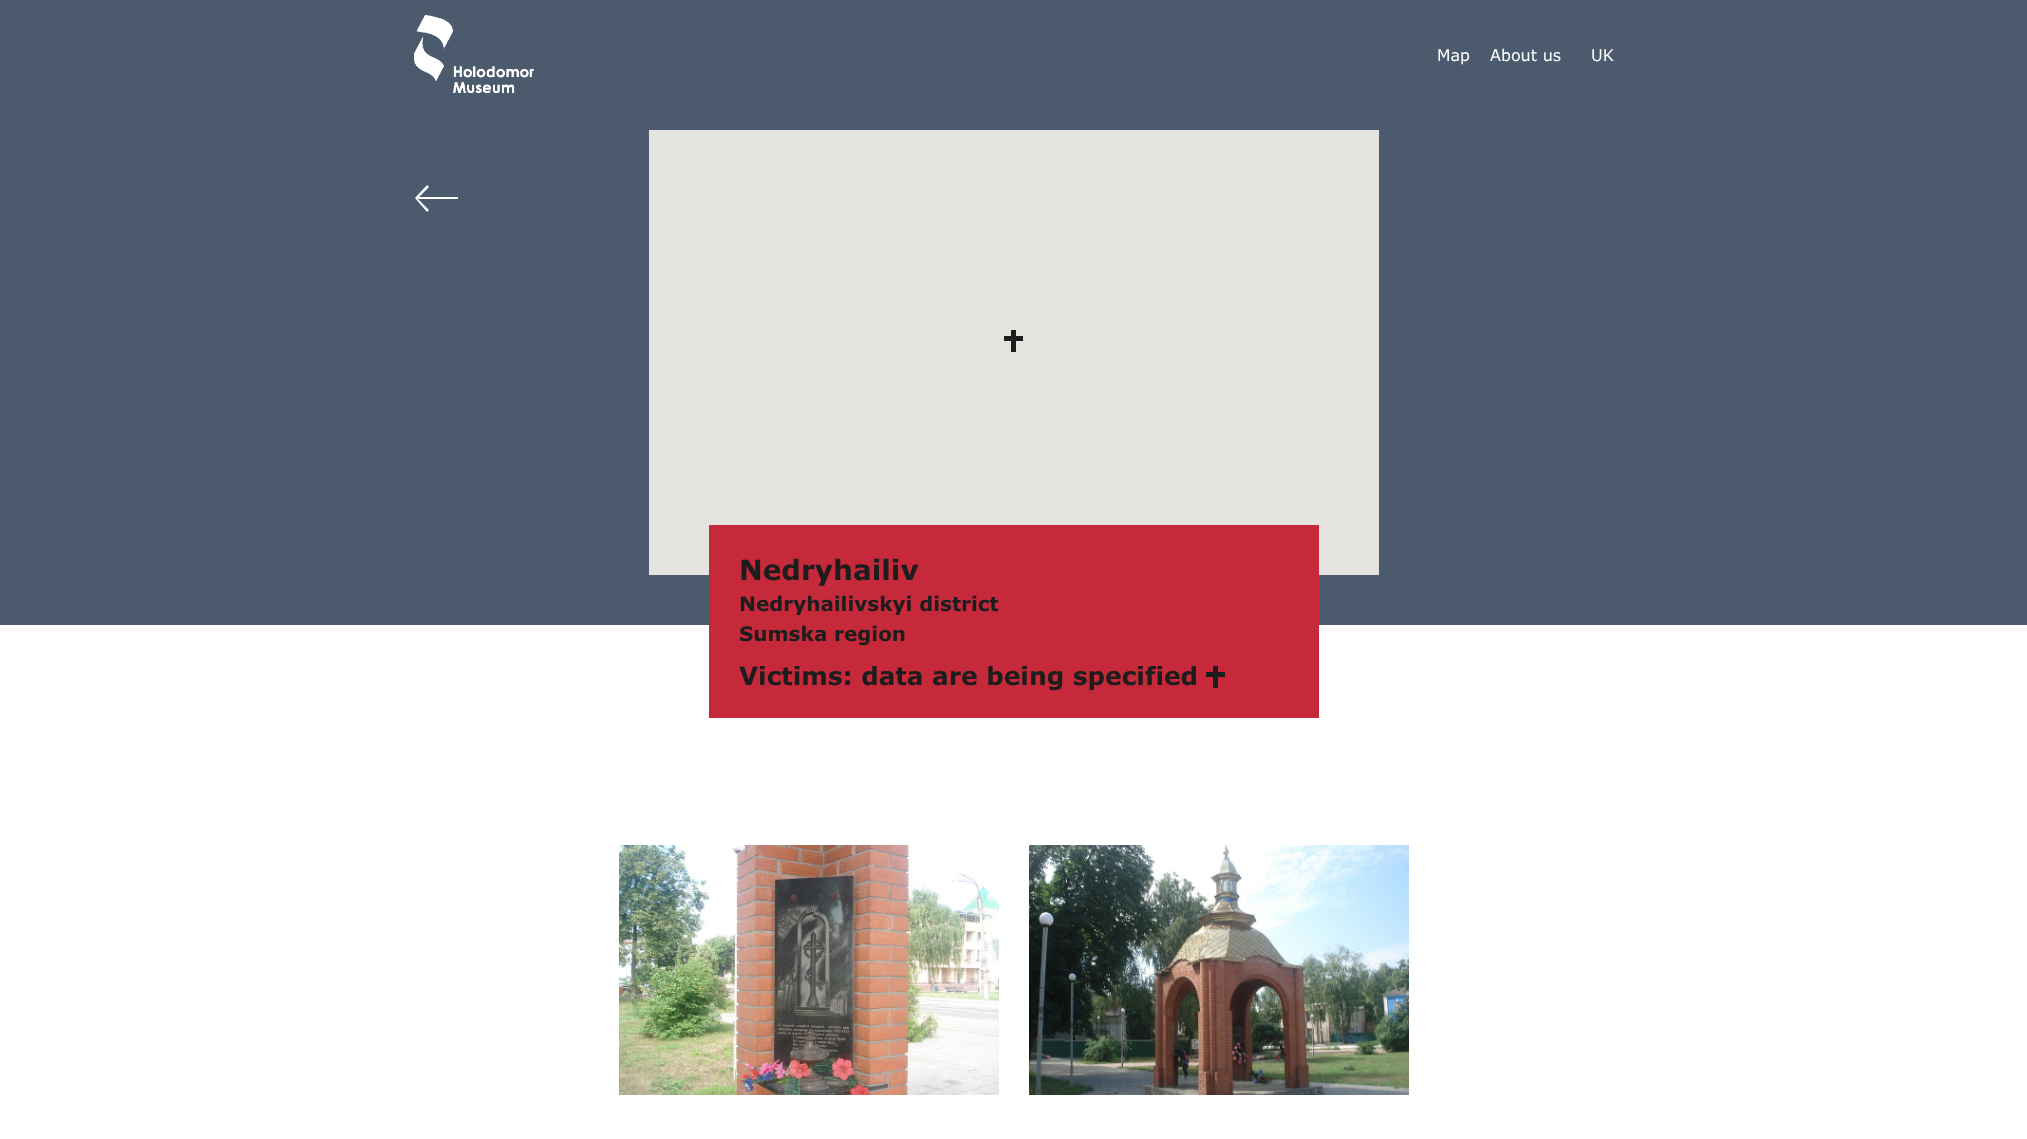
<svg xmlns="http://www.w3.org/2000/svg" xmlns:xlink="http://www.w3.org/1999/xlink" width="2027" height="1139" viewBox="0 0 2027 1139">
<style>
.cls-1{font:16px Verdana;fill:#ffffff}
.cls-2{font:bold 28px Verdana;fill:#1d1d1d}
.cls-3{font:bold 20px Verdana;fill:#1d1d1d}
.cls-4{font:bold 25px Verdana;fill:#1d1d1d}
</style>
<rect width="100%" height="100%" fill="#ffffff"/>
<rect fill="#4c5a6e" x="0" y="0" width="2027" height="625"/>
<image xlink:href="image0.png" x="414" y="15" width="120" height="78"/>
<path fill="#ffffff" d="M418 199V198H417ZM419 197H458V199H418L429 210L427 212L415 198L427 185L429 187Z"/>
<rect fill="#e5e3df" x="649" y="130" width="730" height="445"/>
<image xlink:href="image1.png" x="1004" y="330" width="19" height="22"/>
<rect fill="#c5293a" x="709" y="525" width="610" height="193"/>
<image xlink:href="image2.png" x="1206" y="666" width="19" height="22"/>
<image xlink:href="image3.png" x="619" y="845" width="380" height="250"/>
<image xlink:href="image4.png" x="1029" y="845" width="380" height="250"/>
<text class="cls-1" x="1437" y="61">Map</text>
<text class="cls-1" x="1490" y="61">About us</text>
<text class="cls-1" x="1591" y="61">UK</text>
<text class="cls-2" x="739" y="580">Nedryhаiliv</text>
<text class="cls-3"><tspan x="739" y="611">Nedryhаilivskyi district</tspan><tspan x="739" y="641">Sumskа region</tspan></text>
<text class="cls-4" x="739" y="685">Victims: data are being specified</text>
</svg>
